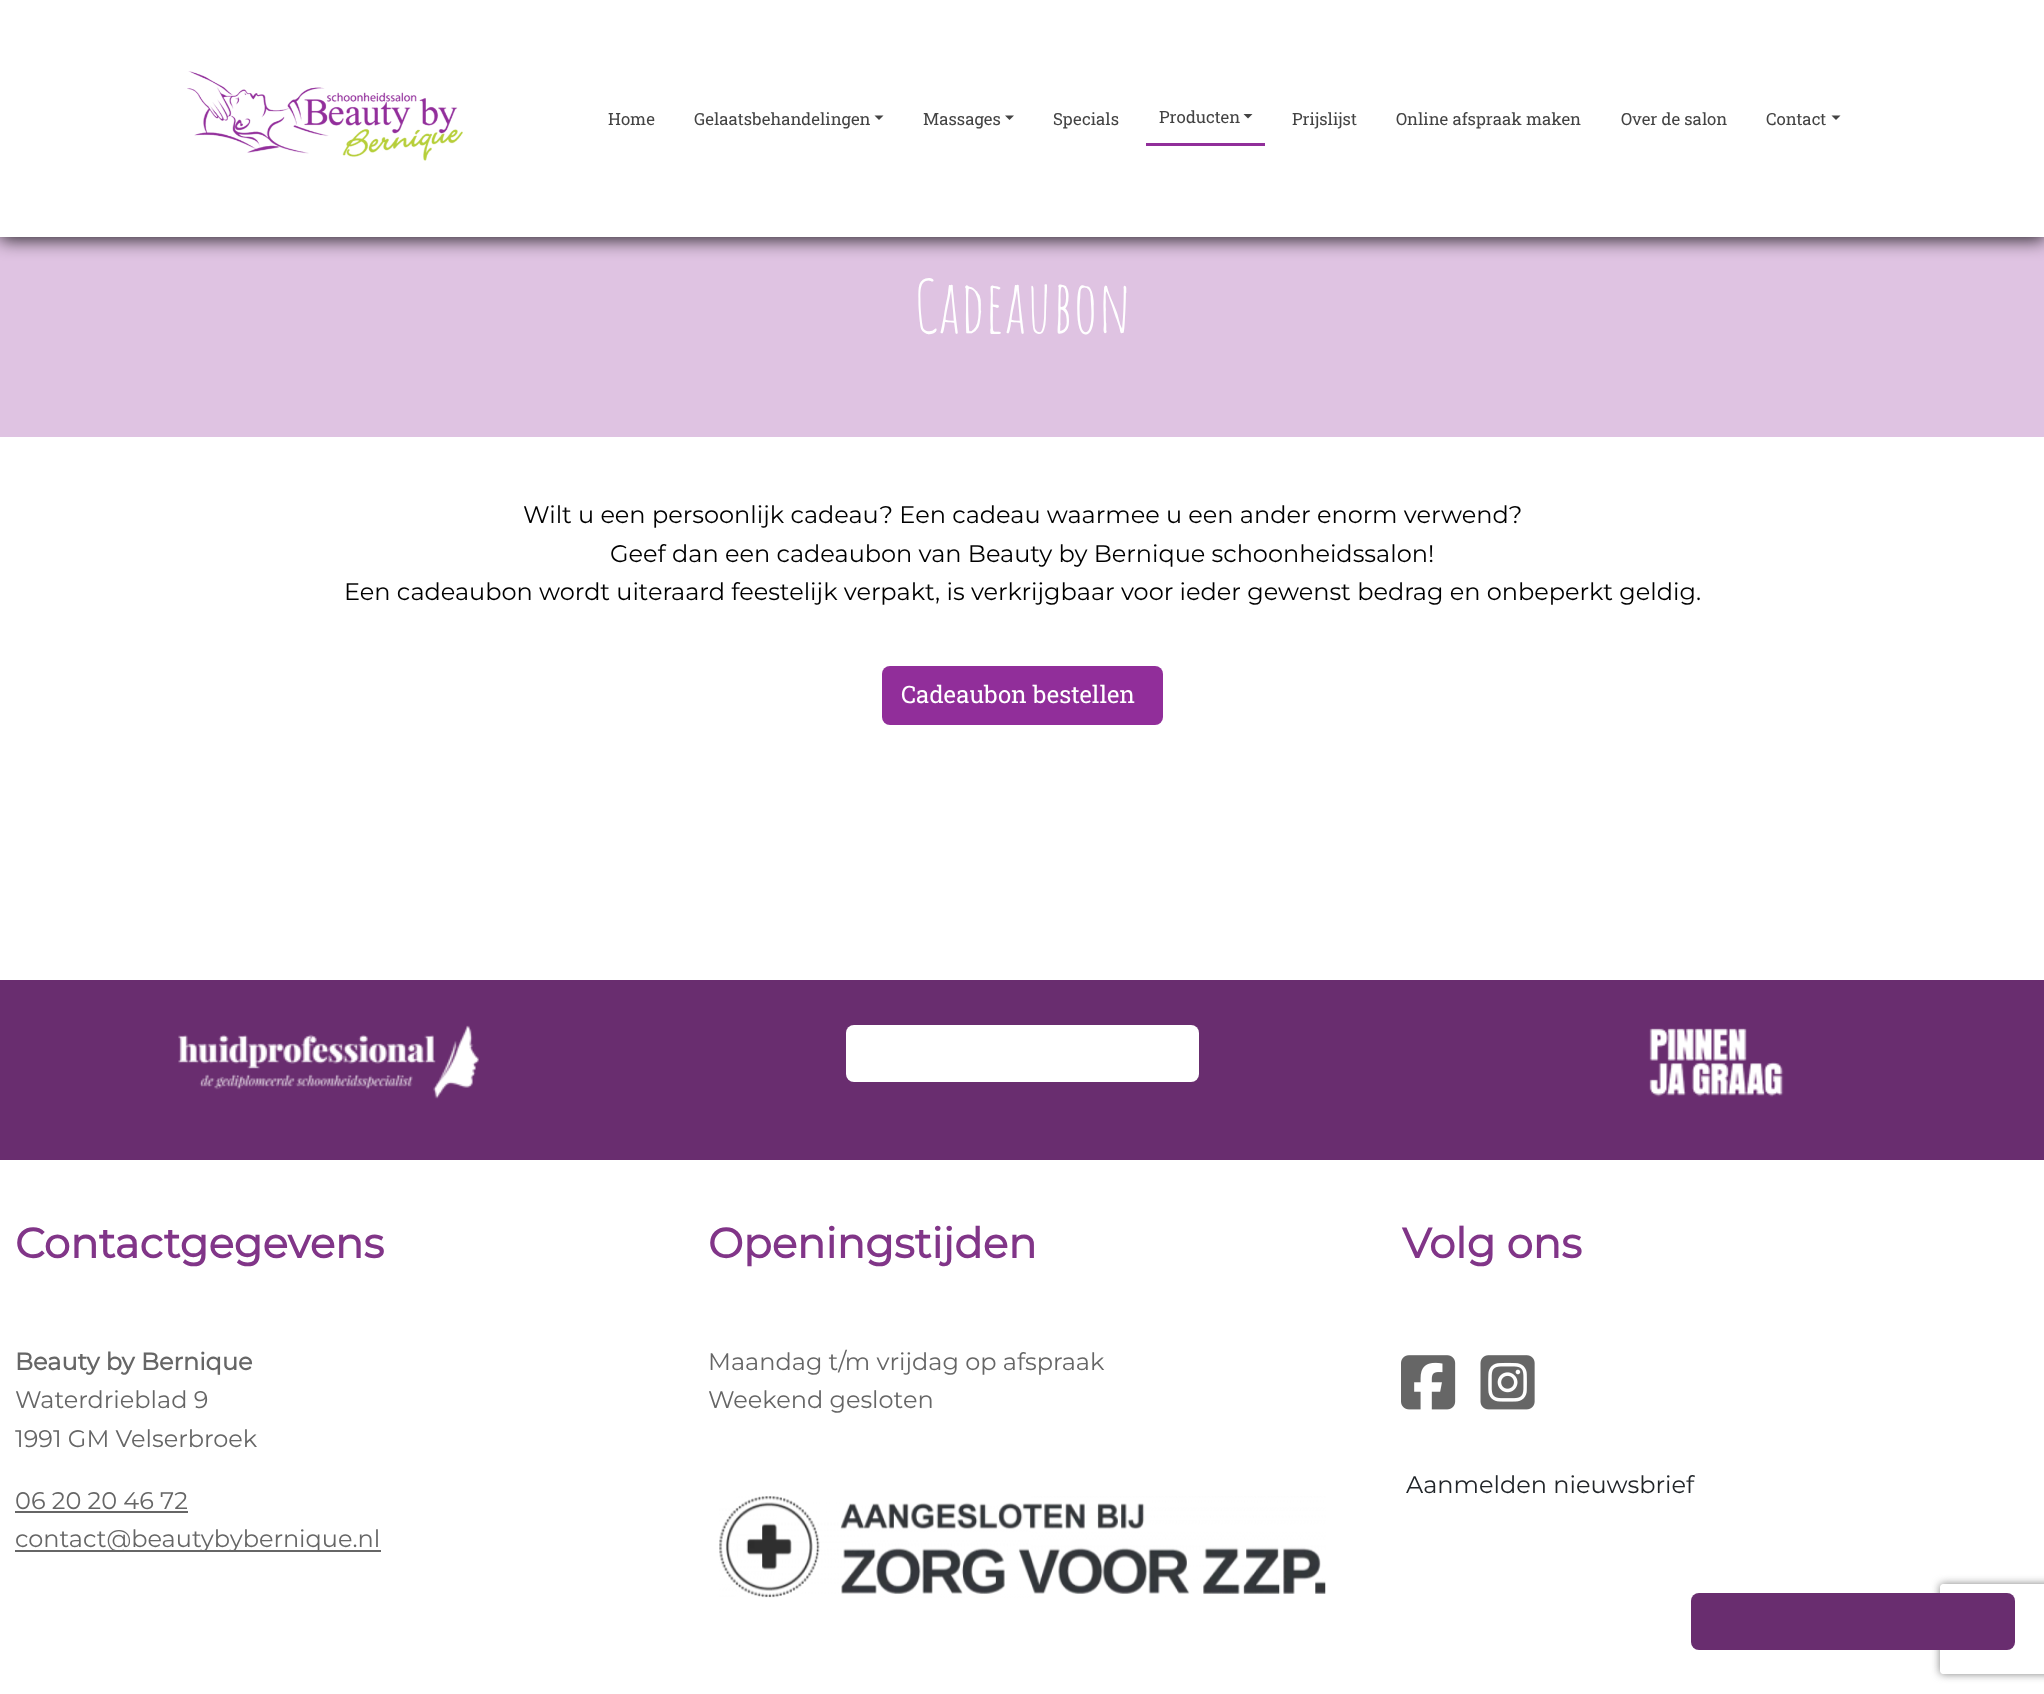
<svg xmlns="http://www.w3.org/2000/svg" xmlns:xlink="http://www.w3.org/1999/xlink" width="2044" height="1694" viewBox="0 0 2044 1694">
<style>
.cls-1{font:16.75px Roboto Slab;fill:#434343}
.cls-2{font:72px Amatic SC;fill:#ffffff}
.cls-3{font:100 24px Montserrat;fill:#000000}
.cls-4{font:24px Roboto Slab;fill:#ffffff}
.cls-5{font:bold 42px Montserrat;fill:#813588}
.cls-6{font:bold 24px Montserrat;fill:#666666}
.cls-7{font:100 24px Montserrat;fill:#666666}
.cls-8{font:100 24px Montserrat;fill:#212529}
</style>
<defs>
<clipPath id="clip1"><path d="M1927 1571H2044V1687H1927ZM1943 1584H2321C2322.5 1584 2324 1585.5 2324 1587V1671C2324 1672.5 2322.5 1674 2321 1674H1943C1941.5 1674 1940 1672.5 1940 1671V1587C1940 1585.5 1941.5 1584 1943 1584Z" clip-rule="evenodd"/></clipPath>
</defs>
<rect width="100%" height="100%" fill="#ffffff"/>
<rect fill="#dfc3e2" x="0" y="237" width="2044" height="200"/>
<rect fill="#000000" fill-opacity="0.8" filter="blur(9px)" x="0" y="3" width="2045" height="237"/>
<rect fill="#ffffff" x="0" y="0" width="2044" height="237"/>
<image xlink:href="image0.png" x="187" y="71" width="276" height="90"/>
<path fill="#434343" d="M874.5 115.5H883.5L879 120Z"/>
<path fill="#434343" d="M1005 115.5H1014L1009.5 120Z"/>
<rect fill="#912e9a" x="1146" y="143" width="119" height="3"/>
<path fill="#434343" d="M1243.5 114H1252.5L1248 118.5Z"/>
<path fill="#434343" d="M1831.5 115.5H1840.5L1836 120Z"/>
<rect fill="#912e9a" x="882" y="666" width="281" height="59" rx="8"/>
<rect fill="#692d6f" x="0" y="980" width="2044" height="180"/>
<image xlink:href="image1.png" x="178" y="1025" width="301" height="74"/>
<rect fill="#ffffff" x="846" y="1025" width="353" height="57" rx="8"/>
<image xlink:href="image2.png" x="1649" y="1028" width="135" height="69"/>
<rect fill="#666666" x="15" y="1511" width="173" height="2"/>
<rect fill="#666666" x="15" y="1550" width="366" height="2"/>
<image xlink:href="image3.png" x="719" y="1496" width="607" height="102"/>
<image xlink:href="image4.png" x="1401" y="1355" width="55" height="55"/>
<image xlink:href="image5.png" x="1480" y="1355" width="55" height="55"/>
<g clip-path="url(#clip1)">
<rect fill="#808080" filter="blur(4px)" x="1940" y="1584" width="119" height="90" rx="3"/>
</g>
<rect fill="#692d6f" x="1691" y="1593" width="324" height="57" rx="8"/>
<text class="cls-1" x="608" y="125">Home</text>
<text class="cls-1" x="694" y="125">Gelaatsbehandelingen</text>
<text class="cls-1" x="923" y="125">Massages</text>
<text class="cls-1" x="1053" y="125">Specials</text>
<text class="cls-1" x="1159" y="123">Producten</text>
<text class="cls-1" x="1292" y="125">Prijslijst</text>
<text class="cls-1" x="1396" y="125">Online afspraak maken</text>
<text class="cls-1" x="1621" y="125">Over de salon</text>
<text class="cls-1" x="1766" y="125">Contact</text>
<text class="cls-2" x="914" y="333">Cadeaubon</text>
<text class="cls-3" x="523" y="523">Wilt u een persoonlijk cadeau? Een cadeau waarmee u een ander enorm verwend?</text>
<text class="cls-3" x="610" y="562">Geef dan een cadeaubon van Beauty by Bernique schoonheidssalon!</text>
<text class="cls-3" x="344" y="600">Een cadeaubon wordt uiteraard feestelijk verpakt, is verkrijgbaar voor ieder gewenst bedrag en onbeperkt geldig.</text>
<text class="cls-4" x="901" y="703">Cadeaubon bestellen</text>
<text class="cls-5" x="15" y="1258">Contactgegevens</text>
<text class="cls-6" x="15" y="1370">Beauty by Bernique</text>
<text class="cls-7"><tspan x="15" y="1408">Waterdrieblad 9</tspan><tspan x="15" y="1447">1991 GM Velserbroek</tspan></text>
<text class="cls-7"><tspan x="15" y="1509">06 20 20 46 72</tspan><tspan x="15" y="1547">contact@beautybybernique.nl</tspan></text>
<text class="cls-5" x="708" y="1258">Openingstijden</text>
<text class="cls-7"><tspan x="708" y="1370">Maandag t/m vrijdag op afspraak</tspan><tspan x="708" y="1408">Weekend gesloten</tspan></text>
<text class="cls-5" x="1402" y="1258">Volg ons</text>
<text class="cls-8" x="1406" y="1493">Aanmelden nieuwsbrief</text>
</svg>
